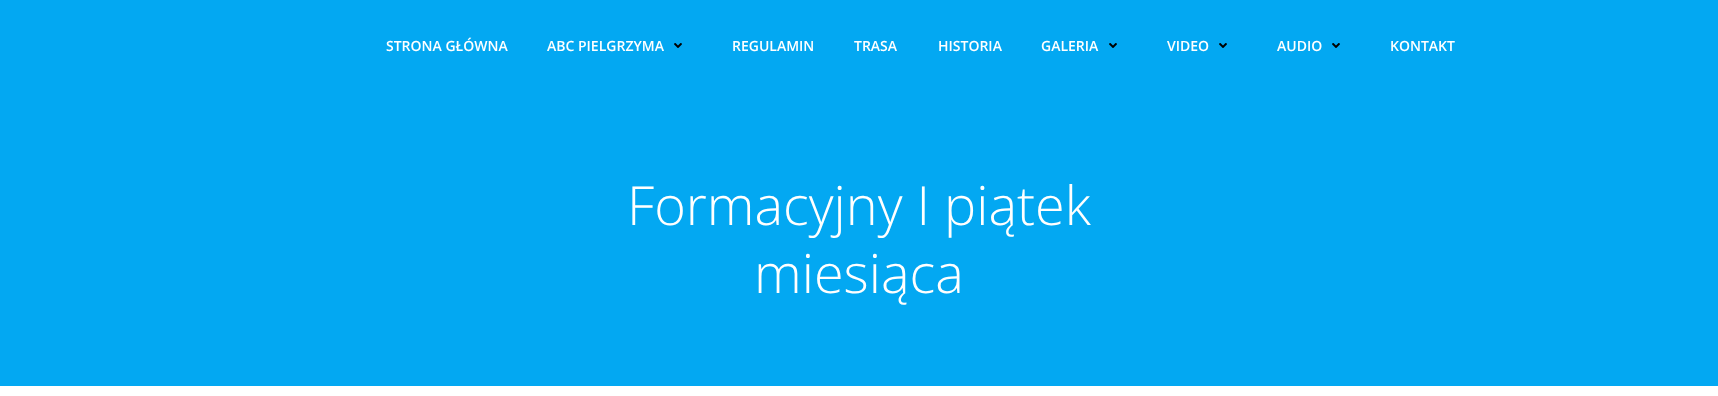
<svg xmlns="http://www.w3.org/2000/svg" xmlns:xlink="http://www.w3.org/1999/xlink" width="1718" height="396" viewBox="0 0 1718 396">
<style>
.cls-1{font:600 14px Open Sans;fill:#ffffff}
.cls-2{font:300 54px Open Sans;fill:#ffffff}
</style>
<rect width="100%" height="100%" fill="#ffffff"/>
<rect fill="#03a8f2" x="0" y="0" width="1718" height="386"/>
<image xlink:href="image0.png" x="674" y="43" width="8" height="5"/>
<image xlink:href="image0.png" x="1109" y="43" width="8" height="5"/>
<image xlink:href="image0.png" x="1219" y="43" width="8" height="5"/>
<image xlink:href="image0.png" x="1332" y="43" width="8" height="5"/>
<text class="cls-1" x="386" y="51">STRONA GŁÓWNA</text>
<text class="cls-1" x="547" y="51">ABC PIELGRZYMA</text>
<text class="cls-1" x="732" y="51">REGULAMIN</text>
<text class="cls-1" x="854" y="51">TRASA</text>
<text class="cls-1" x="938" y="51">HISTORIA</text>
<text class="cls-1" x="1041" y="51">GALERIA</text>
<text class="cls-1" x="1167" y="51">VIDEO</text>
<text class="cls-1" x="1277" y="51">AUDIO</text>
<text class="cls-1" x="1390" y="51">KONTAKT</text>
<text class="cls-2" x="627" y="225">Formacyjny I piątek</text>
<text class="cls-2" x="754" y="293">miesiąca</text>
</svg>
